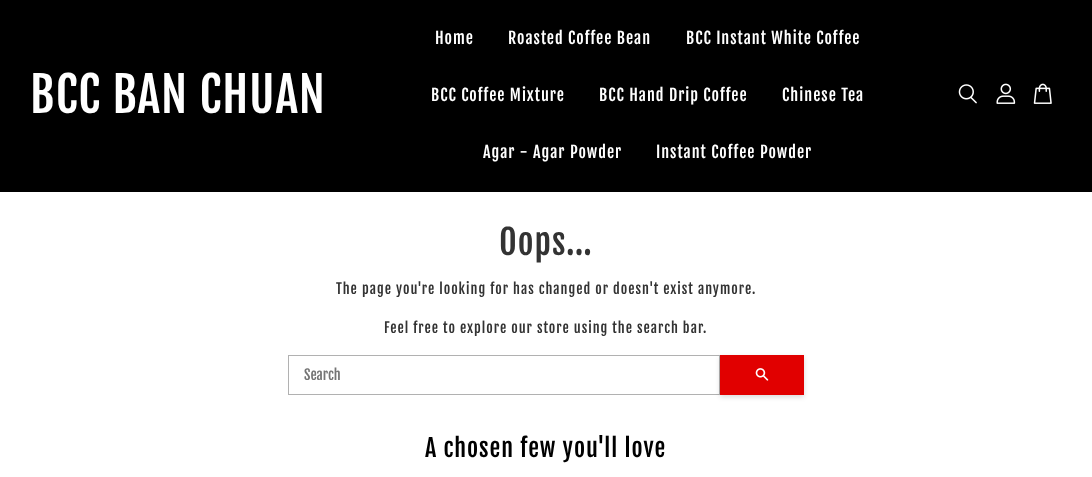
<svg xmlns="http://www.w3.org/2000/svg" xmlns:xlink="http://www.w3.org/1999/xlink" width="1092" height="477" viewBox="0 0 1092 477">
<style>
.cls-1{font:48px Fjalla One;letter-spacing:1px;fill:#ffffff}
.cls-2{font:16px Fjalla One;letter-spacing:1px;fill:#ffffff}
.cls-3{font:34px Fjalla One;letter-spacing:1px;fill:#333333}
.cls-4{font:14px Fjalla One;letter-spacing:1px;fill:#333333}
.cls-5{font:14px Fjalla One;fill:#757575}
.cls-6{font:24px Fjalla One;letter-spacing:1px;fill:#000000}
</style>
<rect width="100%" height="100%" fill="#ffffff"/>
<rect fill="#000000" x="0" y="0" width="1092" height="192"/>
<image xlink:href="image0.png" x="958" y="84" width="19" height="20"/>
<image xlink:href="image1.png" x="996" y="83" width="20" height="21"/>
<image xlink:href="image2.png" x="1033" y="83" width="19" height="21"/>
<rect fill="none" stroke="#b1b1b1" x="288.5" y="355.5" width="431" height="39"/>
<rect fill="#000000" fill-opacity="0.15" filter="blur(2.5px)" x="720" y="357" width="84" height="40"/>
<rect fill="#e10000" x="720" y="355" width="84" height="40"/>
<image xlink:href="image3.png" x="755" y="368" width="14" height="13"/>
<text class="cls-1" x="30" y="113">BCC BAN CHUAN</text>
<text class="cls-2" x="435" y="44">Home</text>
<text class="cls-2" x="508" y="44">Roasted Coffee Bean</text>
<text class="cls-2" x="686" y="44">BCC Instant White Coffee</text>
<text class="cls-2" x="431" y="101">BCC Coffee Mixture</text>
<text class="cls-2" x="599" y="101">BCC Hand Drip Coffee</text>
<text class="cls-2" x="782" y="101">Chinese Tea</text>
<text class="cls-2" x="483" y="158">Agar - Agar Powder</text>
<text class="cls-2" x="656" y="158">Instant Coffee Powder</text>
<text class="cls-3" x="499" y="255">Oops...</text>
<text class="cls-4" x="336" y="294">The page you're looking for has changed or doesn't exist anymore.</text>
<text class="cls-4" x="384" y="333">Feel free to explore our store using the search bar.</text>
<text class="cls-5" x="304" y="380">Search</text>
<text class="cls-6" x="425" y="457">A chosen few you'll love</text>
</svg>
